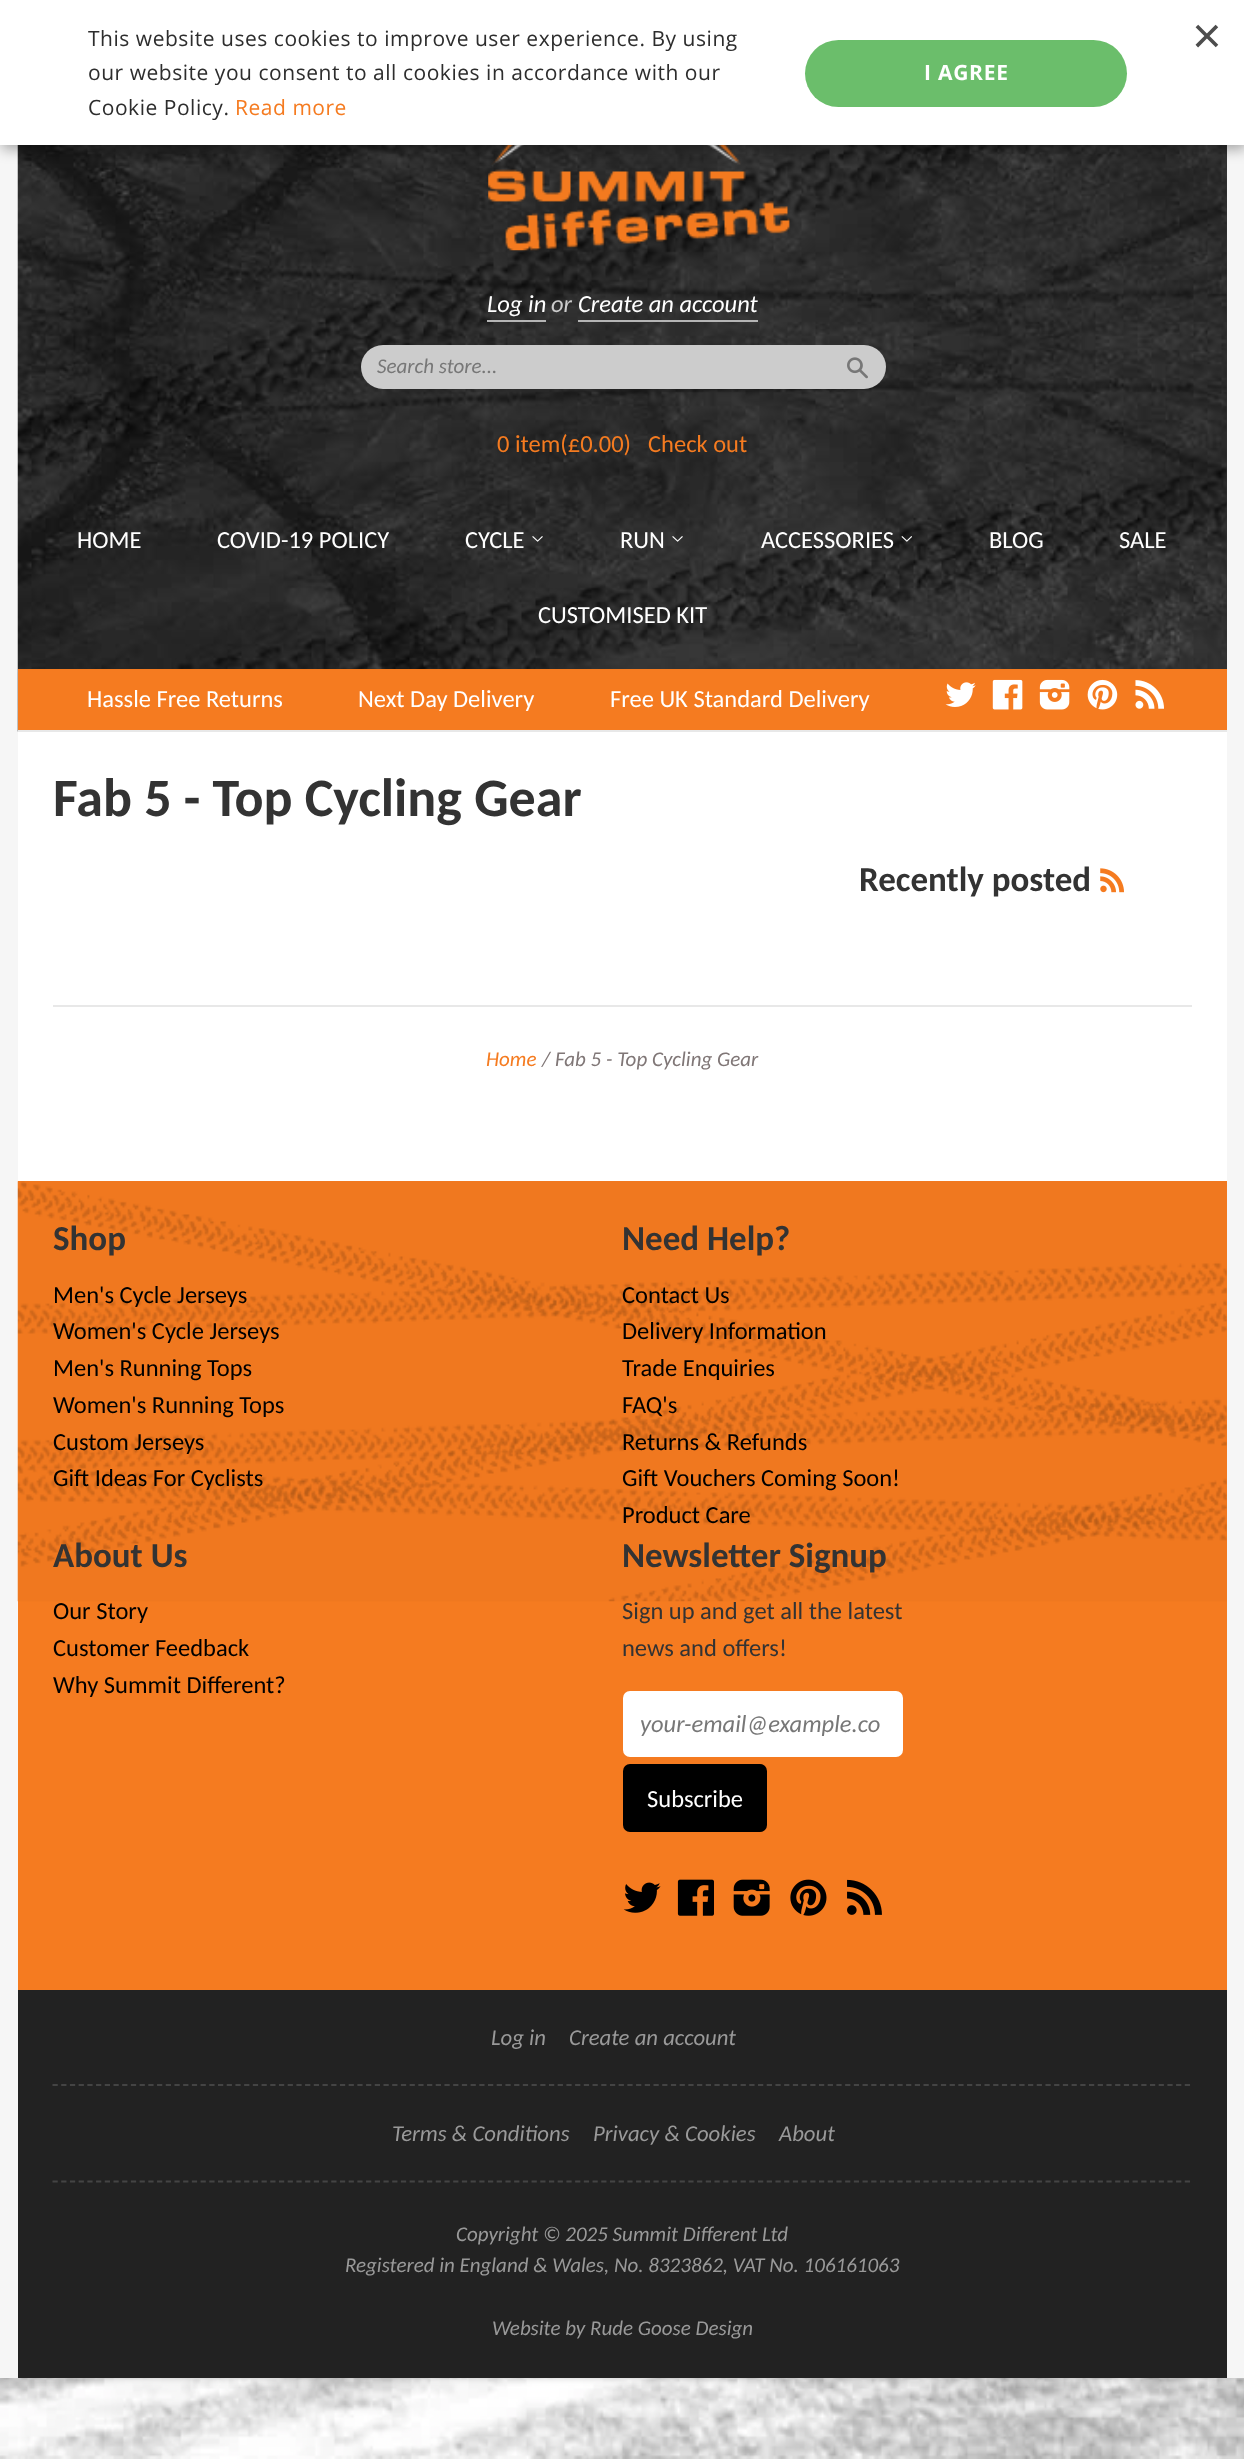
<svg xmlns="http://www.w3.org/2000/svg" xmlns:xlink="http://www.w3.org/1999/xlink" width="1244" height="2459" viewBox="0 0 1244 2459">
<style>
.cls-1{font:21px Open Sans;letter-spacing:0.53px;fill:#2d2d2d}
.cls-2{font:21px Open Sans;letter-spacing:0.53px;fill:#f57b20}
.cls-3{font:bold 21px Open Sans;letter-spacing:0.75px;fill:#ffffff}
.cls-4{font:51px Liberation Sans;fill:#4d4d4d}
.cls-5{font:italic 24.5px Carlito;fill:#ffffff}
.cls-6{font:italic 24.5px Carlito;fill:#cccccc}
.cls-7{font:italic 21px Carlito;fill:#777777}
.cls-8{font:24.5px Carlito;fill:#f57b20}
.cls-9{font:24.5px Carlito;fill:#ffffff}
.cls-10{font:bold 54px Carlito;fill:#333333}
.cls-11{font:bold 35px Carlito;fill:#333333}
.cls-12{font:italic 21px Carlito;fill:#f57b20}
.cls-13{font:italic 21px Carlito;fill:#807777}
.cls-14{font:24.5px Carlito;fill:#000000}
.cls-15{font:24.5px Carlito;fill:#333333}
.cls-16{font:italic 24.5px Carlito;fill:#777777}
.cls-17{font:italic 22.75px Carlito;fill:#999999}
.cls-18{font:italic 21px Carlito;fill:#999999}
</style>
<rect width="100%" height="100%" fill="#ffffff"/>
<image xlink:href="image0.png" x="0" y="2378" width="1244" height="81"/>
<rect fill="#000000" fill-opacity="0.2" filter="blur(3.5px)" x="0" y="0" width="1244" height="2378"/>
<rect fill="#f6f6f6" x="1227" y="145" width="17" height="2233"/>
<rect fill="#f6f6f6" x="0" y="145" width="18" height="2233"/>
<rect fill="#333333" x="1226" y="145" width="1" height="524"/>
<image xlink:href="image1.png" x="17" y="145" width="1210" height="587"/>
<image xlink:href="image2.png" x="488" y="145" width="302" height="106"/>
<rect fill="#000000" fill-opacity="0.35" filter="blur(7px)" x="2" y="4" width="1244" height="145"/>
<rect fill="#ffffff" x="0" y="0" width="1244" height="145"/>
<rect fill="#6bbe6b" x="805" y="40" width="322" height="67" rx="33.5"/>
<rect fill="#ffffff" x="18" y="732" width="1209" height="449"/>
<rect fill="#e8e8e8" x="18" y="730" width="1209" height="2"/>
<rect fill="#b5b5b5" x="487" y="320" width="59" height="2"/>
<rect fill="#b5b5b5" x="578" y="320" width="180" height="2"/>
<rect fill="#cccccc" x="361" y="345" width="525" height="44" rx="22"/>
<image xlink:href="image3.png" x="847" y="357" width="21" height="22"/>
<image xlink:href="image4.png" x="532" y="536" width="11" height="6"/>
<image xlink:href="image5.png" x="672" y="536" width="11" height="6"/>
<image xlink:href="image6.png" x="901" y="536" width="11" height="6"/>
<rect fill="#f57b20" x="18" y="669" width="1209" height="61"/>
<image xlink:href="image7.png" x="945" y="682" width="31" height="25"/>
<image xlink:href="image8.png" x="992" y="679" width="31" height="31"/>
<image xlink:href="image9.png" x="1039" y="679" width="31" height="31"/>
<image xlink:href="image10.png" x="1087" y="679" width="31" height="31"/>
<image xlink:href="image11.png" x="1135" y="680" width="29" height="29"/>
<image xlink:href="image12.png" x="1100" y="868" width="24" height="25"/>
<rect fill="#e8e8e8" x="53" y="1005" width="1139" height="2"/>
<rect fill="#f57b20" x="18" y="1181" width="1209" height="809"/>
<image xlink:href="image13.png" x="17" y="1181" width="1210" height="421"/>
<rect fill="#ffffff" x="623" y="1691" width="280" height="66" rx="7"/>
<rect fill="#000000" x="623" y="1764" width="144" height="68" rx="7"/>
<image xlink:href="image14.png" x="623" y="1882" width="38" height="31"/>
<image xlink:href="image15.png" x="677" y="1879" width="37" height="37"/>
<image xlink:href="image16.png" x="733" y="1879" width="37" height="37"/>
<image xlink:href="image17.png" x="790" y="1879" width="37" height="37"/>
<image xlink:href="image18.png" x="847" y="1879" width="35" height="36"/>
<rect fill="#222222" x="18" y="1990" width="1209" height="388"/>
<path fill="none" stroke="#444444" stroke-width="1.8" stroke-dasharray="5.25 3.46" d="M52.5 2085H1192"/>
<path fill="none" stroke="#444444" stroke-width="1.8" stroke-dasharray="5.25 3.46" d="M52.5 2181.5H1192"/>
<text class="cls-1"><tspan x="88" y="46">This website uses cookies to improve user experience. By using</tspan><tspan x="88" y="80">our website you consent to all cookies in accordance with our</tspan><tspan x="88" y="115">Cookie Policy.</tspan></text>
<text class="cls-2" x="235" y="115">Read more</text>
<text class="cls-3" x="924" y="80">I AGREE</text>
<text class="cls-4" x="1192" y="53">×</text>
<text class="cls-5" x="487" y="312">Log in</text>
<text class="cls-6" x="551" y="312">or</text>
<text class="cls-5" x="578" y="312">Create an account</text>
<text class="cls-7" x="377" y="373">Search store...</text>
<text class="cls-8" x="497" y="452">0 item(£0.00)</text>
<text class="cls-8" x="648" y="452">Check out</text>
<text class="cls-9" x="77" y="548">HOME</text>
<text class="cls-9" x="217" y="548">COVID-19 POLICY</text>
<text class="cls-9" x="465" y="548">CYCLE</text>
<text class="cls-9" x="620" y="548">RUN</text>
<text class="cls-9" x="761" y="548">ACCESSORIES</text>
<text class="cls-9" x="989" y="548">BLOG</text>
<text class="cls-9" x="1119" y="548">SALE</text>
<text class="cls-9" x="538" y="623">CUSTOMISED KIT</text>
<text class="cls-9" x="87" y="707">Hassle Free Returns</text>
<text class="cls-9" x="358" y="707">Next Day Delivery</text>
<text class="cls-9" x="610" y="707">Free UK Standard Delivery</text>
<text class="cls-10" x="53" y="816">Fab 5 - Top Cycling Gear</text>
<text class="cls-11" x="859" y="891">Recently posted</text>
<text class="cls-12" x="486" y="1066">Home</text>
<text class="cls-13" x="542" y="1066">/ Fab 5 - Top Cycling Gear</text>
<text class="cls-11" x="53" y="1250">Shop</text>
<text class="cls-14"><tspan x="53" y="1303">Men's Cycle Jerseys</tspan><tspan x="53" y="1339">Women's Cycle Jerseys</tspan><tspan x="53" y="1376">Men's Running Tops</tspan><tspan x="53" y="1413">Women's Running Tops</tspan><tspan x="53" y="1450">Custom Jerseys</tspan><tspan x="53" y="1486">Gift Ideas For Cyclists</tspan></text>
<text class="cls-11" x="622" y="1250">Need Help?</text>
<text class="cls-14"><tspan x="622" y="1303">Contact Us</tspan><tspan x="622" y="1339">Delivery Information</tspan><tspan x="622" y="1376">Trade Enquiries</tspan><tspan x="622" y="1413">FAQ's</tspan><tspan x="622" y="1450">Returns &amp; Refunds</tspan><tspan x="622" y="1486">Gift Vouchers Coming Soon!</tspan><tspan x="622" y="1523">Product Care</tspan></text>
<text class="cls-11" x="53" y="1567">About Us</text>
<text class="cls-14"><tspan x="53" y="1619">Our Story</tspan><tspan x="53" y="1656">Customer Feedback</tspan><tspan x="53" y="1693">Why Summit Different?</tspan></text>
<text class="cls-11" x="622" y="1567">Newsletter Signup</text>
<text class="cls-15"><tspan x="622" y="1619">Sign up and get all the latest</tspan><tspan x="622" y="1656">news and offers!</tspan></text>
<text class="cls-16" x="640" y="1732">your-email@example.co</text>
<text class="cls-9" x="647" y="1807">Subscribe</text>
<text class="cls-17" x="491" y="2045">Log in</text>
<text class="cls-17" x="569" y="2045">Create an account</text>
<text class="cls-17" x="392" y="2141">Terms &amp; Conditions</text>
<text class="cls-17" x="593" y="2141">Privacy &amp; Cookies</text>
<text class="cls-17" x="779" y="2141">About</text>
<text class="cls-18" x="456" y="2241">Copyright © 2025 Summit Different Ltd</text>
<text class="cls-18" x="345" y="2272">Registered in England &amp; Wales, No. 8323862, VAT No. 106161063</text>
<text class="cls-18" x="492" y="2335">Website by Rude Goose Design</text>
</svg>
